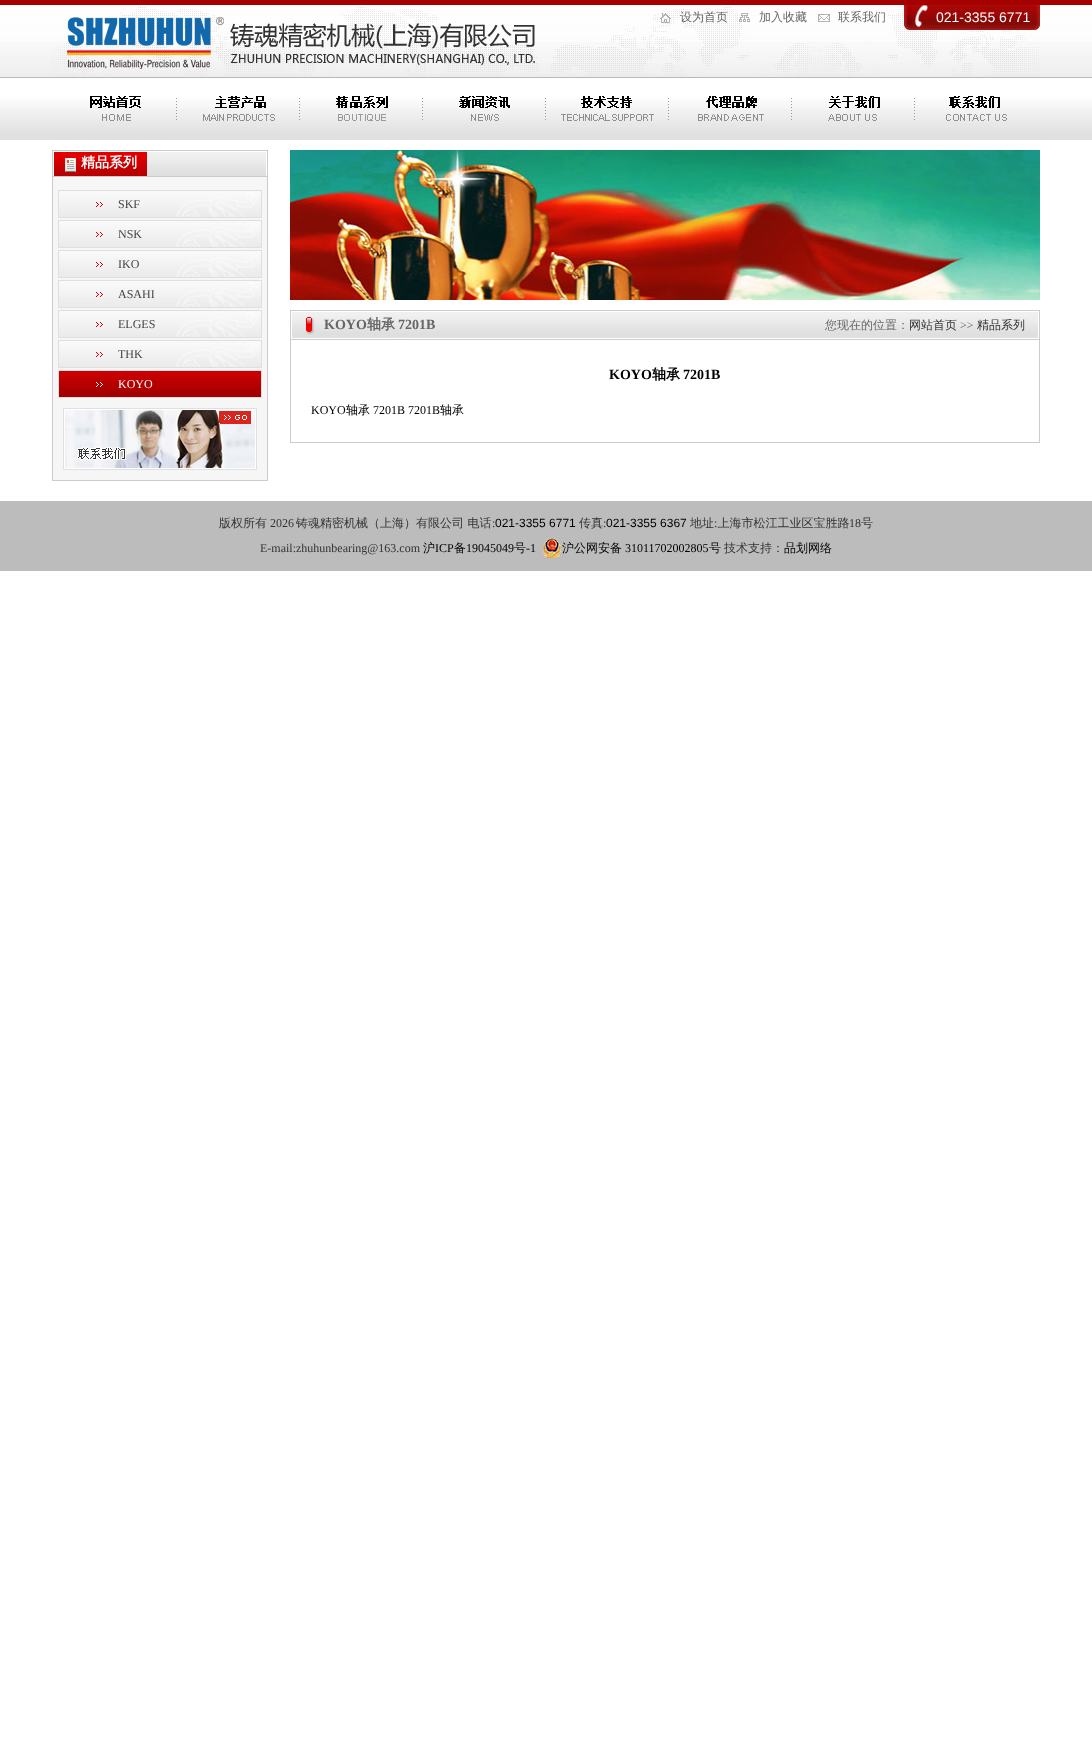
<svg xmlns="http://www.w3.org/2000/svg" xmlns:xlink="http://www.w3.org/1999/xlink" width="1092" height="1743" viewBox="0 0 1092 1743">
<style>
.cls-1{font:500 12px WenQuanYi Zen Hei;fill:#666666}
.cls-2{font:14px Liberation Sans;fill:#ffffff}
.cls-3{font:bold 14px WenQuanYi Zen Hei;fill:#ffffff}
.cls-4{font:12px Liberation Serif;fill:#444444}
.cls-5{font:12px Liberation Serif;fill:#ffffff}
.cls-6{font:bold 14px Liberation Serif;fill:#666666}
.cls-7{font:bold 14px WenQuanYi Zen Hei;fill:#666666}
.cls-8{font:500 12px WenQuanYi Zen Hei;fill:#333333}
.cls-9{font:12px Liberation Serif;fill:#666666}
.cls-10{font:bold 14px Liberation Serif;fill:#000000}
.cls-11{font:bold 14px WenQuanYi Zen Hei;fill:#000000}
.cls-12{font:12px Liberation Serif;fill:#000000}
.cls-13{font:500 12px WenQuanYi Zen Hei;fill:#000000}
.cls-14{font:12px Liberation Serif;fill:#333333}
.cls-15{font:12px Liberation Sans;fill:#000000}
</style>
<rect width="100%" height="100%" fill="#ffffff"/>
<image xlink:href="image0.png" x="0" y="0" width="1092" height="140"/>
<image xlink:href="image1.png" x="52" y="7" width="987" height="69"/>
<image xlink:href="image2.png" x="67" y="17" width="468" height="52"/>
<image xlink:href="image3.png" x="660" y="13" width="11" height="10"/>
<image xlink:href="image4.png" x="739" y="13" width="11" height="9"/>
<image xlink:href="image5.png" x="818" y="14" width="12" height="8"/>
<image xlink:href="image6.png" x="904" y="5" width="136" height="25"/>
<image xlink:href="image7.png" x="176" y="98" width="1" height="22"/>
<image xlink:href="image8.png" x="90" y="96" width="51" height="25"/>
<image xlink:href="image7.png" x="299" y="98" width="1" height="22"/>
<image xlink:href="image9.png" x="203" y="96" width="72" height="25"/>
<image xlink:href="image7.png" x="422" y="98" width="1" height="22"/>
<image xlink:href="image10.png" x="336" y="96" width="52" height="25"/>
<image xlink:href="image7.png" x="545" y="98" width="1" height="22"/>
<image xlink:href="image11.png" x="459" y="96" width="51" height="25"/>
<image xlink:href="image7.png" x="668" y="98" width="1" height="22"/>
<image xlink:href="image12.png" x="561" y="96" width="93" height="25"/>
<image xlink:href="image7.png" x="791" y="98" width="1" height="22"/>
<image xlink:href="image13.png" x="698" y="96" width="66" height="25"/>
<image xlink:href="image7.png" x="914" y="98" width="1" height="22"/>
<image xlink:href="image14.png" x="828" y="96" width="52" height="25"/>
<image xlink:href="image15.png" x="946" y="96" width="61" height="25"/>
<image xlink:href="image16.png" x="52" y="150" width="216" height="26"/>
<rect fill="#f6f6f6" stroke="#cccccc" x="52.5" y="176.5" width="215" height="304"/>
<image xlink:href="image17.png" x="58" y="190" width="204" height="28"/>
<image xlink:href="image17.png" x="58" y="220" width="204" height="28"/>
<image xlink:href="image17.png" x="58" y="250" width="204" height="28"/>
<image xlink:href="image17.png" x="58" y="280" width="204" height="28"/>
<image xlink:href="image17.png" x="58" y="310" width="204" height="28"/>
<image xlink:href="image17.png" x="58" y="340" width="204" height="28"/>
<image xlink:href="image18.png" x="58" y="370" width="204" height="28"/>
<image xlink:href="image19.png" x="63" y="408" width="195" height="62"/>
<image xlink:href="image20.png" x="290" y="150" width="750" height="150"/>
<image xlink:href="image21.png" x="290" y="310" width="750" height="30"/>
<rect fill="#cccccc" x="1039" y="340" width="1" height="103"/>
<rect fill="#cccccc" x="290" y="442" width="750" height="1"/>
<rect fill="#cccccc" x="290" y="340" width="1" height="103"/>
<rect fill="#bcbcbc" x="0" y="501" width="1092" height="70"/>
<image xlink:href="image22.png" x="543" y="538" width="18" height="20"/>
<text class="cls-1" x="680" y="21">设为首页</text>
<text class="cls-1" x="759" y="21">加入收藏</text>
<text class="cls-1" x="838" y="21">联系我们</text>
<text class="cls-2" x="936" y="22">021-3355 6771</text>
<text class="cls-3" x="81" y="167">精品系列</text>
<text class="cls-4" x="118" y="208">SKF</text>
<text class="cls-4" x="118" y="238">NSK</text>
<text class="cls-4" x="118" y="268">IKO</text>
<text class="cls-4" x="118" y="298">ASAHI</text>
<text class="cls-4" x="118" y="328">ELGES</text>
<text class="cls-4" x="118" y="358">THK</text>
<text class="cls-5" x="118" y="388">KOYO</text>
<text class="cls-6" x="324" y="329">KOYO</text>
<text class="cls-7" x="367" y="329">轴承</text>
<text class="cls-6" x="398" y="329">7201B</text>
<text class="cls-1" x="825" y="329">您现在的位置：</text>
<text class="cls-8" x="909" y="329">网站首页</text>
<text class="cls-9" x="960" y="329">&gt;&gt;</text>
<text class="cls-8" x="977" y="329">精品系列</text>
<text class="cls-10" x="609" y="379">KOYO</text>
<text class="cls-11" x="652" y="379">轴承</text>
<text class="cls-10" x="683" y="379">7201B</text>
<text class="cls-12" x="311" y="414">KOYO</text>
<text class="cls-13" x="346" y="414">轴承</text>
<text class="cls-12" x="373" y="414">7201B 7201B</text>
<text class="cls-13" x="440" y="414">轴承</text>
<text class="cls-8" x="219" y="527">版权所有</text>
<text class="cls-14" x="270" y="527">2026</text>
<text class="cls-8" x="296" y="527">铸魂精密机械（上海）有限公司 电话</text>
<text class="cls-14" x="492" y="527">:</text>
<text class="cls-15" x="495" y="527">021-3355 6771</text>
<text class="cls-8" x="579" y="527">传真</text>
<text class="cls-14" x="603" y="527">:</text>
<text class="cls-15" x="606" y="527">021-3355 6367</text>
<text class="cls-8" x="690" y="527">地址 上海市松江工业区宝胜路</text>
<text class="cls-14" x="849" y="527">18</text>
<text class="cls-8" x="861" y="527">号</text>
<text class="cls-14" x="714" y="527">:</text>
<text class="cls-14" x="260" y="552">E-mail:zhuhunbearing@163.com</text>
<text class="cls-13" x="423" y="552">沪</text>
<text class="cls-12" x="435" y="552">ICP</text>
<text class="cls-13" x="454" y="552">备</text>
<text class="cls-12" x="466" y="552">19045049</text>
<text class="cls-13" x="514" y="552">号</text>
<text class="cls-12" x="526" y="552">-1</text>
<text class="cls-13" x="562" y="552">沪公网安备</text>
<text class="cls-12" x="625" y="552">31011702002805</text>
<text class="cls-13" x="709" y="552">号</text>
<text class="cls-8" x="724" y="552">技术支持：</text>
<text class="cls-13" x="784" y="552">品划网络</text>
</svg>
